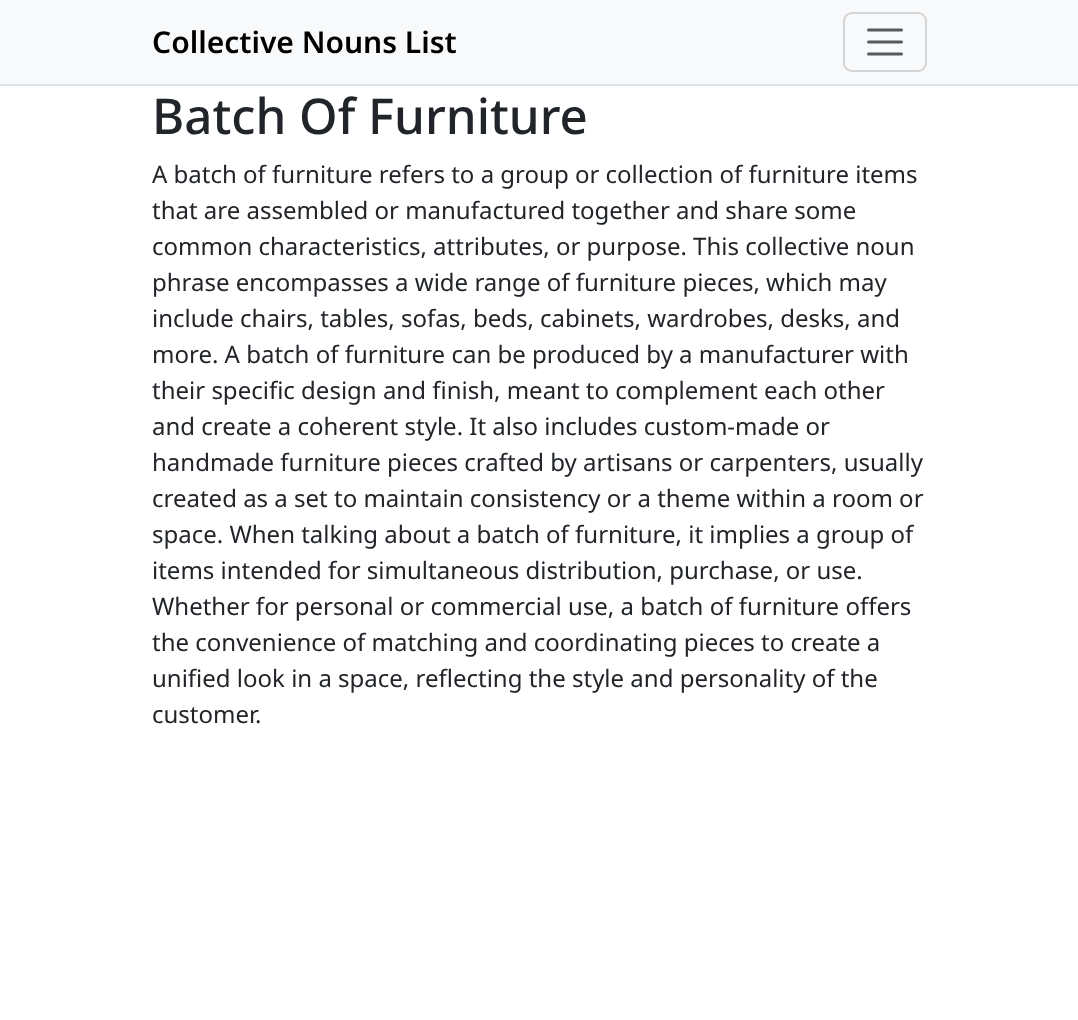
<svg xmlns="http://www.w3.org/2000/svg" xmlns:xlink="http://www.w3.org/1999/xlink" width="1078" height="1020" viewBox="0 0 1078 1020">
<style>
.cls-1{font:600 30px Noto Sans;fill:#000000}
.cls-2{font:500 49.25px Noto Sans;fill:#212529}
.cls-3{font:24px Noto Sans;fill:#212529}
</style>
<rect width="100%" height="100%" fill="#ffffff"/>
<rect fill="#f8f9fa" x="0" y="0" width="1078" height="84"/>
<rect fill="#dee2e6" x="0" y="84" width="1078" height="2"/>
<rect fill="none" stroke="#d3d4d5" stroke-width="2" x="844" y="13" width="82" height="58" rx="8"/>
<path fill="none" stroke="#575a5d" stroke-width="3" stroke-linecap="round" d="M868.5 30H901.5M868.5 42H901.5M868.5 54H901.5"/>
<text class="cls-1" x="152" y="53">Collective Nouns List</text>
<text class="cls-2" x="152" y="134">Batch Of Furniture</text>
<text class="cls-3"><tspan x="152" y="183">A batch of furniture refers to a group or collection of furniture items</tspan><tspan x="152" y="219">that are assembled or manufactured together and share some</tspan><tspan x="152" y="255">common characteristics, attributes, or purpose. This collective noun</tspan><tspan x="152" y="291">phrase encompasses a wide range of furniture pieces, which may</tspan><tspan x="152" y="327">include chairs, tables, sofas, beds, cabinets, wardrobes, desks, and</tspan><tspan x="152" y="363">more. A batch of furniture can be produced by a manufacturer with</tspan><tspan x="152" y="399">their specific design and finish, meant to complement each other</tspan><tspan x="152" y="435">and create a coherent style. It also includes custom-made or</tspan><tspan x="152" y="471">handmade furniture pieces crafted by artisans or carpenters, usually</tspan><tspan x="152" y="507">created as a set to maintain consistency or a theme within a room or</tspan><tspan x="152" y="543">space. When talking about a batch of furniture, it implies a group of</tspan><tspan x="152" y="579">items intended for simultaneous distribution, purchase, or use.</tspan><tspan x="152" y="615">Whether for personal or commercial use, a batch of furniture offers</tspan><tspan x="152" y="651">the convenience of matching and coordinating pieces to create a</tspan><tspan x="152" y="687">unified look in a space, reflecting the style and personality of the</tspan><tspan x="152" y="723">customer.</tspan></text>
</svg>
